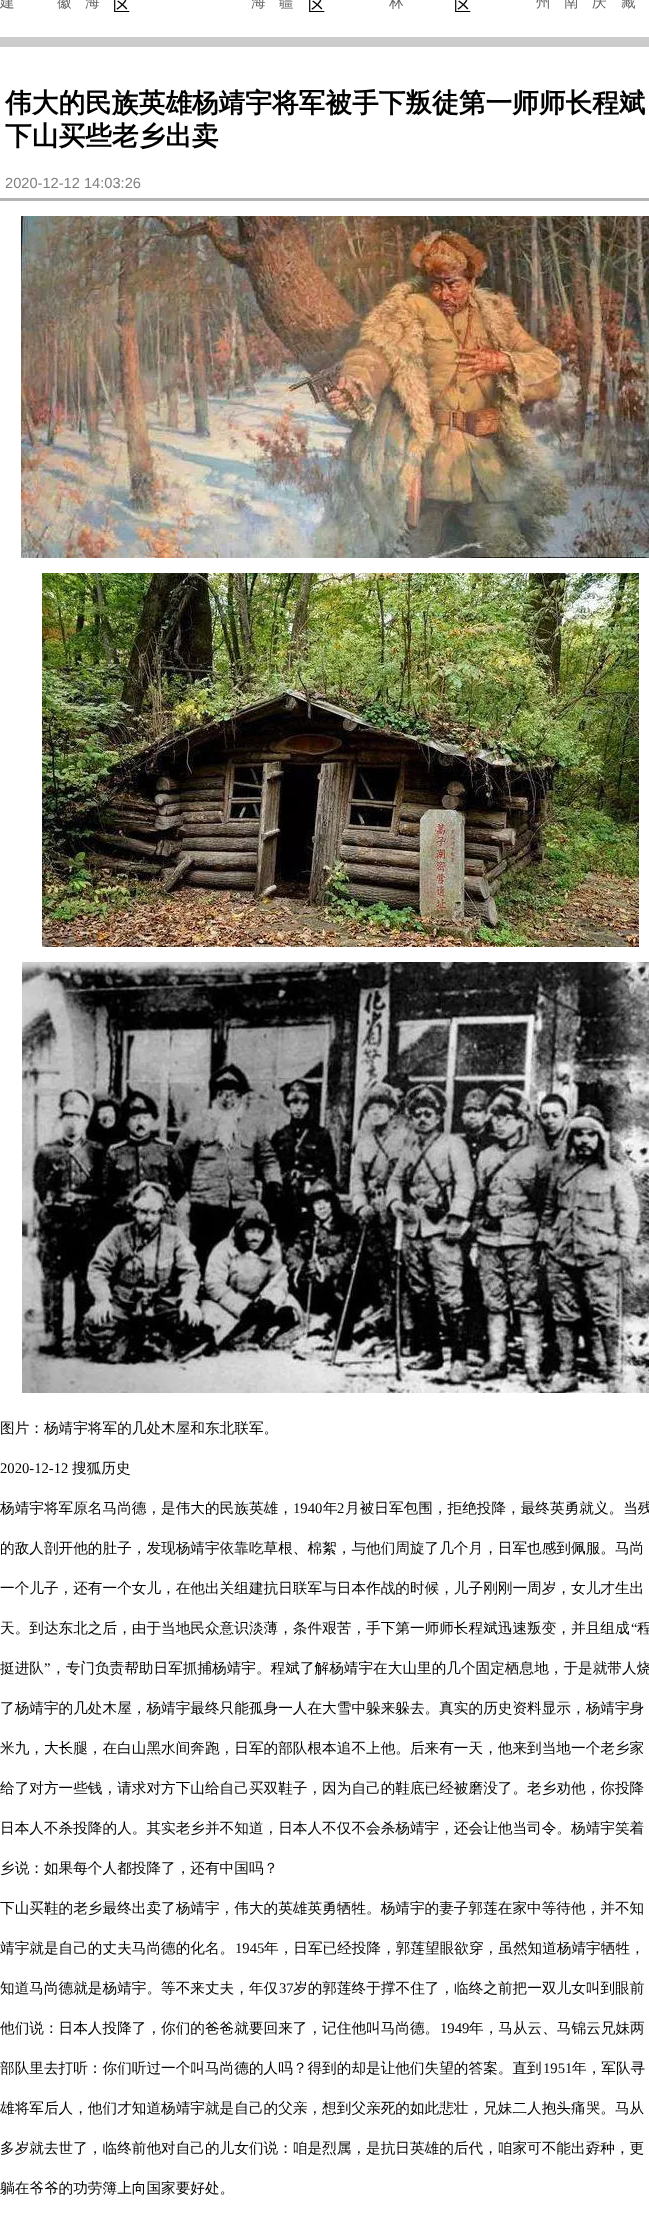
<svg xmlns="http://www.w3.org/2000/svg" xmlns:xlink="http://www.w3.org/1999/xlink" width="649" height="2223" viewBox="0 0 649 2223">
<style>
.cls-1{font:500 14.65px WenQuanYi Zen Hei;fill:#666666}
.cls-2{font:500 17px WenQuanYi Zen Hei;fill:#000000}
.cls-3{font:bold 26.7px WenQuanYi Zen Hei;fill:#000000}
.cls-4{font:14.65px Liberation Sans;fill:#808080}
.cls-5{font:500 14.65px WenQuanYi Zen Hei;fill:#000000}
.cls-6{font:14.65px Liberation Serif;fill:#000000}
</style>
<rect width="100%" height="100%" fill="#ffffff"/>
<rect fill="#cccccc" x="0" y="37" width="649" height="10"/>
<rect fill="#b4b4b4" x="0" y="198" width="649" height="3"/>
<image xlink:href="image0.png" x="21" y="216" width="628" height="342"/>
<image xlink:href="image1.png" x="42" y="573" width="597" height="374"/>
<image xlink:href="image2.png" x="22" y="962" width="627" height="431"/>
<text class="cls-1" x="0" y="7">建</text>
<text class="cls-1" x="57" y="7">徽</text>
<text class="cls-1" x="85" y="7">海</text>
<text class="cls-2" x="113" y="11">区</text>
<text class="cls-1" x="251" y="7">海</text>
<text class="cls-1" x="279" y="7">疆</text>
<text class="cls-2" x="308" y="11">区</text>
<text class="cls-1" x="389" y="7">林</text>
<text class="cls-2" x="454" y="11">区</text>
<text class="cls-1" x="536" y="7">州</text>
<text class="cls-1" x="564" y="7">南</text>
<text class="cls-1" x="592" y="7">庆</text>
<text class="cls-1" x="621" y="7">藏</text>
<text class="cls-3"><tspan x="5" y="112">伟大的民族英雄杨靖宇将军被手下叛徒第一师师长程斌</tspan><tspan x="5" y="145">下山买些老乡出卖</tspan></text>
<text class="cls-4" x="5" y="188">2020-12-12 14:03:26</text>
<text class="cls-5" x="0" y="1433">图片：杨靖宇将军的几处木屋和东北联军。</text>
<text class="cls-6" x="0" y="1473">2020-12-12</text>
<text class="cls-5" x="72" y="1473">搜狐历史</text>
<text class="cls-5" x="0" y="1513">杨靖宇将军原名马尚德，是伟大的民族英雄，</text>
<text class="cls-6" x="293" y="1513">1940</text>
<text class="cls-5" x="323" y="1513">年</text>
<text class="cls-6" x="337" y="1513">2</text>
<text class="cls-5" x="345" y="1513">月被日军包围，拒绝投降，最终英勇就义。当残</text>
<text class="cls-5" x="0" y="1553">的敌人剖开他的肚子，发现杨靖宇依靠吃草根、棉絮，与他们周旋了几个月，日军也感到佩服。马尚</text>
<text class="cls-5" x="0" y="1593">一个儿子，还有一个女儿，在他出关组建抗日联军与日本作战的时候，儿子刚刚一周岁，女儿才生出</text>
<text class="cls-5" x="0" y="1633">天。到达东北之后，由于当地民众意识淡薄，条件艰苦，手下第一师师长程斌迅速叛变，并且组成</text>
<text class="cls-6" x="631" y="1633">“</text>
<text class="cls-5" x="637" y="1633">程</text>
<text class="cls-5" x="0" y="1673">挺进队</text>
<text class="cls-6" x="44" y="1673">”</text>
<text class="cls-5" x="51" y="1673">，专门负责帮助日军抓捕杨靖宇。程斌了解杨靖宇在大山里的几个固定栖息地，于是就带人烧</text>
<text class="cls-5" x="0" y="1713">了杨靖宇的几处木屋，杨靖宇最终只能孤身一人在大雪中躲来躲去。真实的历史资料显示，杨靖宇身</text>
<text class="cls-5" x="0" y="1753">米九，大长腿，在白山黑水间奔跑，日军的部队根本追不上他。后来有一天，他来到当地一个老乡家</text>
<text class="cls-5" x="0" y="1793">给了对方一些钱，请求对方下山给自己买双鞋子，因为自己的鞋底已经被磨没了。老乡劝他，你投降</text>
<text class="cls-5" x="0" y="1833">日本人不杀投降的人。其实老乡并不知道，日本人不仅不会杀杨靖宇，还会让他当司令。杨靖宇笑着</text>
<text class="cls-5" x="0" y="1873">乡说：如果每个人都投降了，还有中国吗？</text>
<text class="cls-5" x="0" y="1913">下山买鞋的老乡最终出卖了杨靖宇，伟大的英雄英勇牺牲。杨靖宇的妻子郭莲在家中等待他，并不知</text>
<text class="cls-5" x="0" y="1953">靖宇就是自己的丈夫马尚德的化名。</text>
<text class="cls-6" x="235" y="1953">1945</text>
<text class="cls-5" x="264" y="1953">年，日军已经投降，郭莲望眼欲穿，虽然知道杨靖宇牺牲，</text>
<text class="cls-5" x="0" y="1993">知道马尚德就是杨靖宇。等不来丈夫，年仅</text>
<text class="cls-6" x="279" y="1993">37</text>
<text class="cls-5" x="293" y="1993">岁的郭莲终于撑不住了，临终之前把一双儿女叫到眼前</text>
<text class="cls-5" x="0" y="2033">他们说：日本人投降了，你们的爸爸就要回来了，记住他叫马尚德。</text>
<text class="cls-6" x="440" y="2033">1949</text>
<text class="cls-5" x="469" y="2033">年，马从云、马锦云兄妹两</text>
<text class="cls-5" x="0" y="2073">部队里去打听：你们听过一个叫马尚德的人吗？得到的却是让他们失望的答案。直到</text>
<text class="cls-6" x="543" y="2073">1951</text>
<text class="cls-5" x="572" y="2073">年，军队寻</text>
<text class="cls-5" x="0" y="2113">雄将军后人，他们才知道杨靖宇就是自己的父亲，想到父亲死的如此悲壮，兄妹二人抱头痛哭。马从</text>
<text class="cls-5" x="0" y="2153">多岁就去世了，临终前他对自己的儿女们说：咱是烈属，是抗日英雄的后代，咱家可不能出孬种，更</text>
<text class="cls-5" x="0" y="2193">躺在爷爷的功劳簿上向国家要好处。</text>
</svg>
